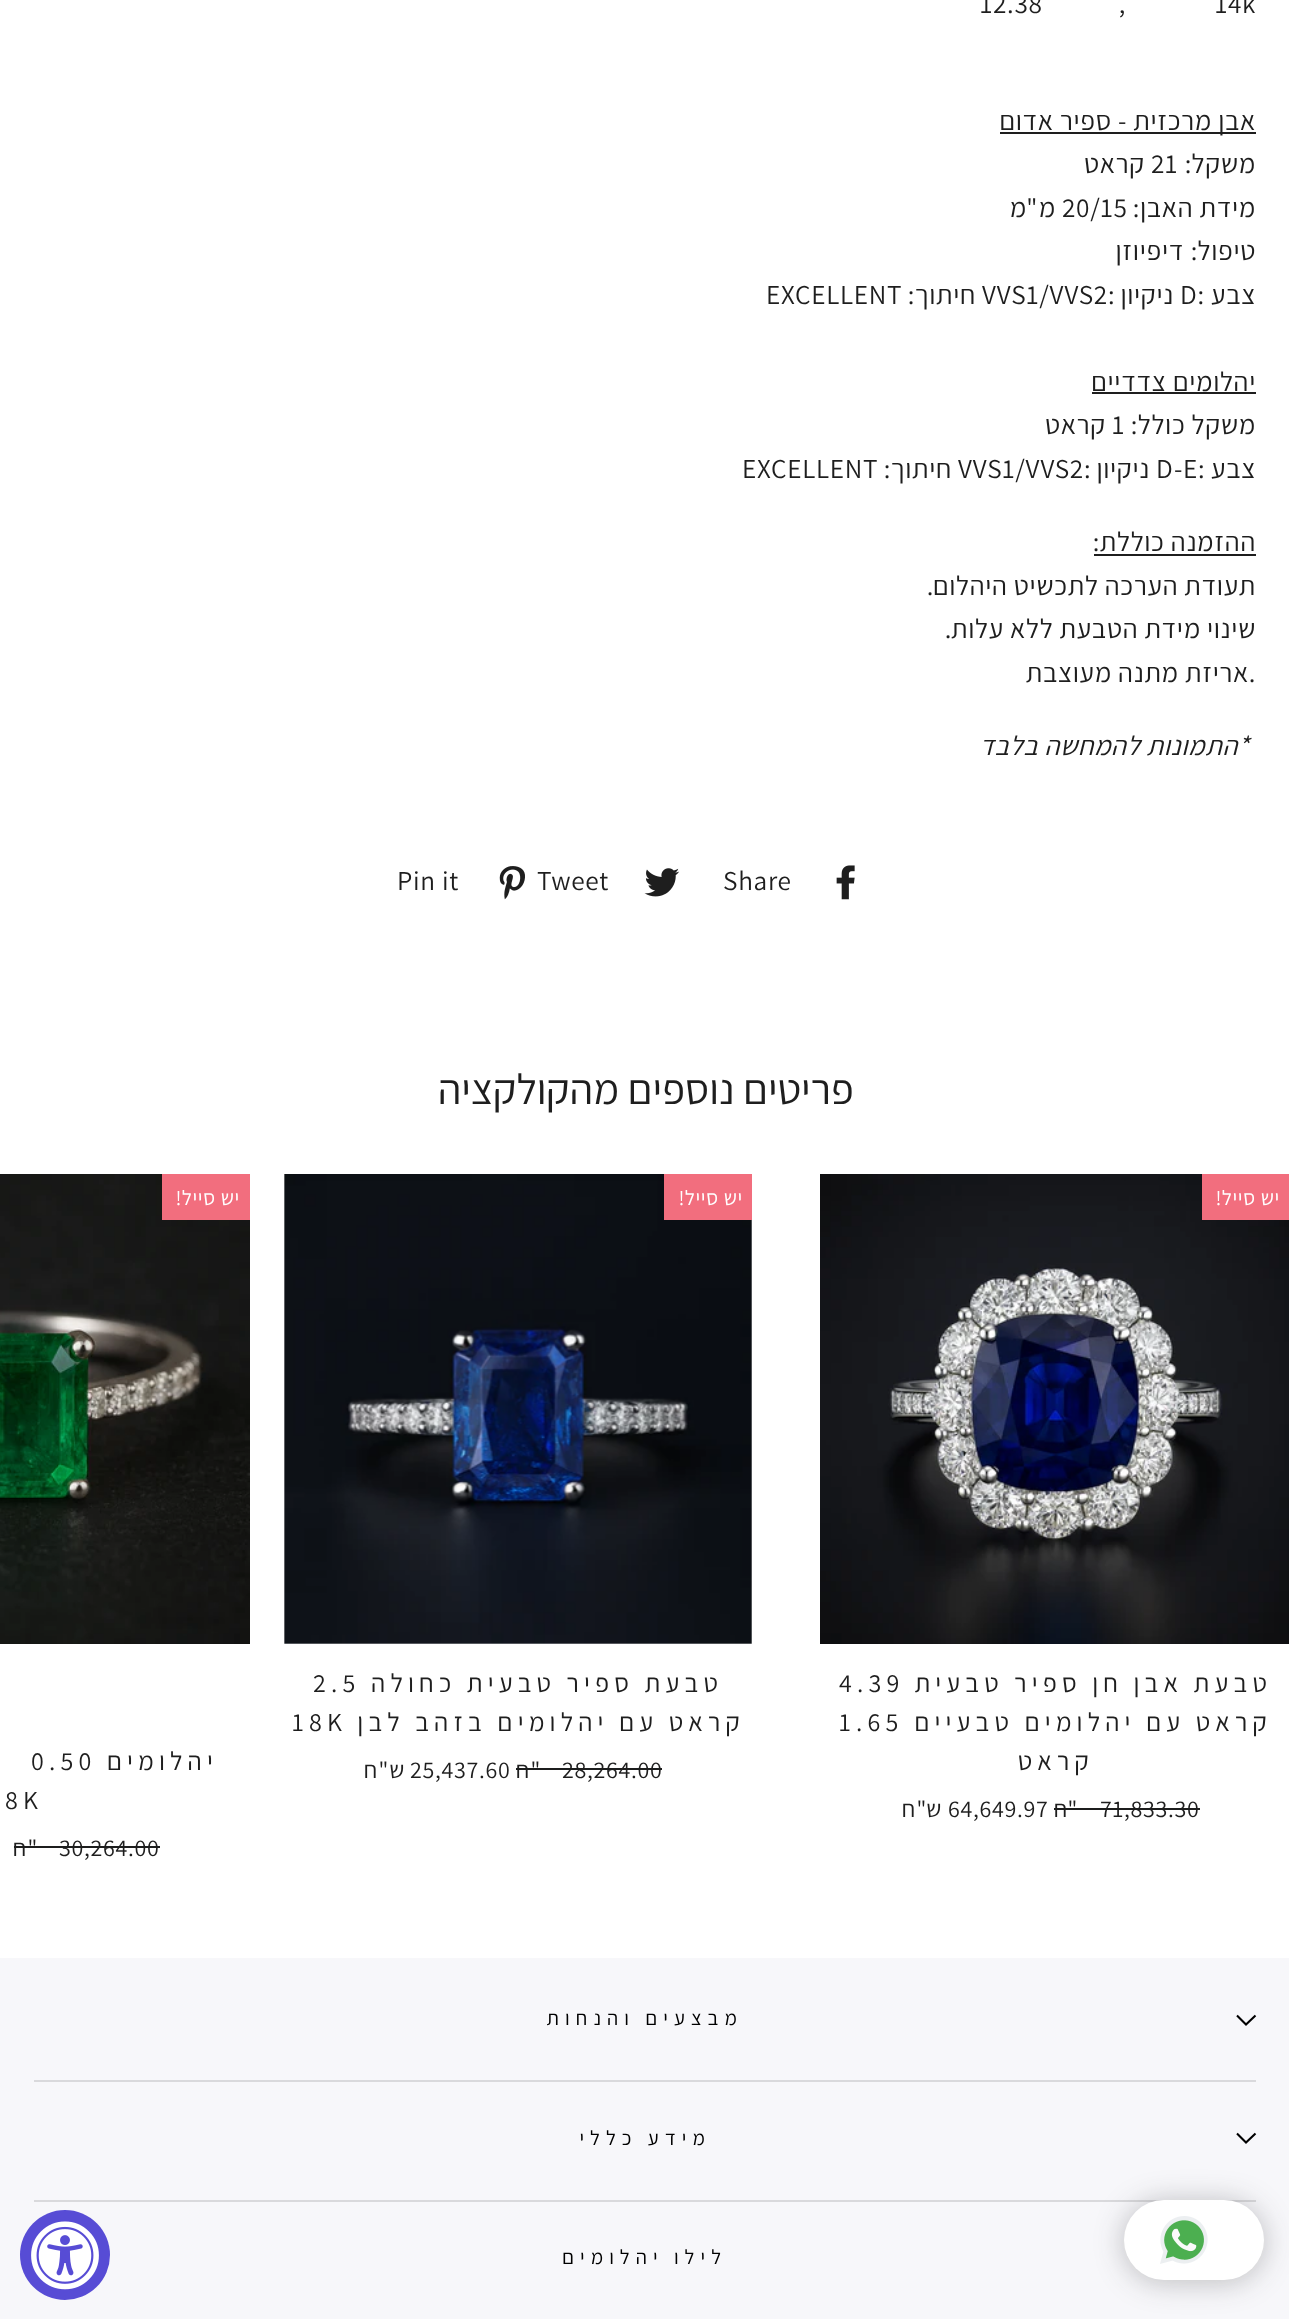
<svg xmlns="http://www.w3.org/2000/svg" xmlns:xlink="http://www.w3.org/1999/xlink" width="1289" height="2319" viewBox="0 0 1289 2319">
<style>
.cls-1{font:27.25px Assistant;letter-spacing:0.7px;fill:#1e1e1e}
.cls-2{font:27.25px Assistant;letter-spacing:0.7px;direction:rtl;fill:#1e1e1e}
.cls-3{font:200 27.25px Assistant;letter-spacing:0.7px;direction:rtl;fill:#1e1e1e}
.cls-4{font:200 27.25px Assistant;letter-spacing:0.7px;fill:#1e1e1e}
.cls-5{font:italic 27.25px Assistant;letter-spacing:0.7px;fill:#1e1e1e}
.cls-6{font:italic 200 27.25px Assistant;letter-spacing:0.7px;direction:rtl;fill:#1e1e1e}
.cls-7{font:200 42.75px Assistant;direction:rtl;fill:#1e1e1e}
.cls-8{font:200 21px Assistant;letter-spacing:0.7px;direction:rtl;fill:#ffffff}
.cls-9{font:21px Assistant;letter-spacing:0.7px;direction:rtl;fill:#ffffff}
.cls-10{font:200 26px Assistant;letter-spacing:5.2px;direction:rtl;fill:#1e1e1e}
.cls-11{font:26px Assistant;letter-spacing:5.2px;fill:#1e1e1e}
.cls-12{font:24px Assistant;letter-spacing:0.7px;fill:#1e1e1e}
.cls-13{font:24px Assistant;letter-spacing:0.7px;direction:rtl;fill:#1e1e1e}
.cls-14{font:200 24px Assistant;letter-spacing:0.7px;direction:rtl;fill:#1e1e1e}
.cls-15{font:200 20.5px Assistant;letter-spacing:6.1px;direction:rtl;fill:#000000}
</style>
<rect width="100%" height="100%" fill="#ffffff"/>
<rect fill="#1e1e1e" x="1000" y="132" width="256" height="2"/>
<rect fill="#1e1e1e" x="1092" y="392" width="164" height="2"/>
<rect fill="#1e1e1e" x="1094" y="554" width="162" height="2"/>
<image xlink:href="image0.png" x="836" y="865" width="19" height="35"/>
<image xlink:href="image1.png" x="644" y="868" width="35" height="29"/>
<image xlink:href="image2.png" x="499" y="866" width="26" height="34"/>
<image xlink:href="image3.png" x="820" y="1174" width="469" height="470"/>
<rect fill="#f26e7e" x="1202" y="1174" width="87" height="46"/>
<image xlink:href="image4.png" x="284" y="1174" width="468" height="470"/>
<rect fill="#f26e7e" x="664" y="1174" width="88" height="46"/>
<image xlink:href="image5.png" x="0" y="1174" width="250" height="470"/>
<rect fill="#f26e7e" x="162" y="1174" width="88" height="46"/>
<rect fill="#f7f7fa" x="0" y="1958" width="1289" height="361"/>
<path fill="none" stroke="#000000" stroke-width="2.1" d="M1237 2015.5L1246 2024.5L1255.5 2015.5"/>
<rect fill="#d9d9dc" x="34" y="2080" width="1222" height="2"/>
<path fill="none" stroke="#000000" stroke-width="2.1" d="M1237 2133.5L1246 2142.5L1255.5 2133.5"/>
<rect fill="#d9d9dc" x="34" y="2200" width="1222" height="2"/>
<rect fill="#202124" fill-opacity="0.28" filter="blur(15px)" x="1124" y="2202" width="140" height="80" rx="40"/>
<rect fill="#ffffff" x="1124" y="2200" width="140" height="80" rx="40"/>
<image xlink:href="image6.png" x="1160" y="2216" width="48" height="48"/>
<circle fill="#574cd5" cx="65" cy="2255" r="45"/>
<image xlink:href="image7.png" x="31" y="2221" width="68" height="69"/>
<text class="cls-1" x="1215" y="13">14k</text>
<text class="cls-1" x="980" y="13">12.38</text>
<text class="cls-2" x="1126" y="13">,</text>
<text class="cls-3"><tspan x="1256" y="130">אבן מרכזית - ספיר אדום</tspan><tspan x="1256" y="173">משקל</tspan></text>
<text class="cls-2" x="1192" y="173">:</text>
<text class="cls-1" x="1151" y="173">21</text>
<text class="cls-3" x="1145" y="173">קראט</text>
<text class="cls-3" x="1256" y="217">מידת האבן</text>
<text class="cls-2" x="1140" y="217">:</text>
<text class="cls-1" x="1062" y="217">20/15</text>
<text class="cls-3" x="1056" y="217">מ</text>
<text class="cls-2" x="1038" y="217">"</text>
<text class="cls-3" x="1027" y="217">מ</text>
<text class="cls-3" x="1256" y="260">טיפול</text>
<text class="cls-2" x="1198" y="260">:</text>
<text class="cls-3" x="1184" y="260">דיפיוזן</text>
<text class="cls-3" x="1256" y="304">צבע</text>
<text class="cls-1" x="1180" y="304">D:</text>
<text class="cls-3" x="1174" y="304">ניקיון</text>
<text class="cls-1" x="982" y="304">VVS1/VVS2:</text>
<text class="cls-3" x="976" y="304">חיתוך</text>
<text class="cls-2" x="915" y="304">:</text>
<text class="cls-1" x="766" y="304">EXCELLENT</text>
<text class="cls-3"><tspan x="1256" y="391">יהלומים צדדיים</tspan><tspan x="1256" y="434">משקל כולל</tspan></text>
<text class="cls-2" x="1138" y="434">:</text>
<text class="cls-1" x="1112" y="434">1</text>
<text class="cls-3" x="1106" y="434">קראט</text>
<text class="cls-3" x="1256" y="478">צבע</text>
<text class="cls-1" x="1183" y="478">E:</text>
<text class="cls-4" x="1174" y="478">-</text>
<text class="cls-1" x="1156" y="478">D</text>
<text class="cls-3" x="1150" y="478">ניקיון</text>
<text class="cls-1" x="958" y="478">VVS1/VVS2:</text>
<text class="cls-3" x="952" y="478">חיתוך</text>
<text class="cls-2" x="891" y="478">:</text>
<text class="cls-1" x="742" y="478">EXCELLENT</text>
<text class="cls-3" x="1256" y="551">ההזמנה כוללת</text>
<text class="cls-2" x="1100" y="551">:</text>
<text class="cls-3" x="1256" y="595">תעודת הערכה לתכשיט היהלום</text>
<text class="cls-2" x="934" y="595">.</text>
<text class="cls-3" x="1256" y="638">שינוי מידת הטבעת ללא עלות</text>
<text class="cls-2" x="952" y="638">.</text>
<text class="cls-2" x="1256" y="682">.</text>
<text class="cls-3" x="1249" y="682">אריזת מתנה מעוצבת</text>
<text class="cls-5" x="1238" y="755">*</text>
<text class="cls-6" x="1238" y="755">התמונות להמחשה בלבד</text>
<text class="cls-1" x="723" y="890">Share</text>
<text class="cls-1" x="537" y="890">Tweet</text>
<text class="cls-1" x="397" y="890">Pin it</text>
<text class="cls-7" x="854" y="1104">פריטים נוספים מהקולקציה</text>
<text class="cls-8" x="1280" y="1205">יש סייל</text>
<text class="cls-9" x="1222" y="1205">!</text>
<text class="cls-10" x="1272" y="1692">טבעת אבן חן ספיר טבעית</text>
<text class="cls-11" x="839" y="1692">4.39</text>
<text class="cls-10" x="1272" y="1731">קראט עם יהלומים טבעיים</text>
<text class="cls-11" x="839" y="1731">1.65</text>
<text class="cls-10" x="1094" y="1770">קראט</text>
<text class="cls-12" x="1100" y="1817">71,833.30</text>
<rect fill="#1c1d1d" x="1100" y="1808" width="100" height="2"/>
<text class="cls-13" x="1078" y="1817">"</text>
<text class="cls-14" x="1068" y="1817">ח</text>
<rect fill="#1c1d1d" x="1054" y="1808" width="46" height="2"/>
<text class="cls-12" x="948" y="1817">64,649.97</text>
<text class="cls-14" x="942" y="1817">ש</text>
<text class="cls-13" x="927" y="1817">"</text>
<text class="cls-14" x="916" y="1817">ח</text>
<text class="cls-8" x="743" y="1205">יש סייל</text>
<text class="cls-9" x="685" y="1205">!</text>
<text class="cls-10" x="723" y="1692">טבעת ספיר טבעית כחולה</text>
<text class="cls-11" x="313" y="1692">2.5</text>
<text class="cls-10" x="745" y="1731">קראט עם יהלומים בזהב לבן</text>
<text class="cls-11" x="292" y="1731">18K</text>
<text class="cls-12" x="562" y="1778">28,264.00</text>
<rect fill="#1c1d1d" x="562" y="1768" width="100" height="2"/>
<text class="cls-13" x="541" y="1778">"</text>
<text class="cls-14" x="530" y="1778">ח</text>
<rect fill="#1c1d1d" x="516" y="1768" width="46" height="2"/>
<text class="cls-12" x="410" y="1778">25,437.60</text>
<text class="cls-14" x="405" y="1778">ש</text>
<text class="cls-13" x="389" y="1778">"</text>
<text class="cls-14" x="378" y="1778">ח</text>
<text class="cls-8" x="240" y="1205">יש סייל</text>
<text class="cls-9" x="182" y="1205">!</text>
<text class="cls-10" x="218" y="1770">יהלומים</text>
<text class="cls-11" x="31" y="1770">0.50</text>
<text class="cls-11" x="5" y="1809">8K</text>
<text class="cls-12" x="59" y="1856">30,264.00</text>
<rect fill="#1c1d1d" x="58" y="1846" width="102" height="2"/>
<text class="cls-13" x="38" y="1856">"</text>
<text class="cls-14" x="27" y="1856">ח</text>
<rect fill="#1c1d1d" x="14" y="1846" width="44" height="2"/>
<text class="cls-15" x="743" y="2025">מבצעים והנחות</text>
<text class="cls-15" x="711" y="2145">מידע כללי</text>
<text class="cls-15" x="727" y="2264">לילו יהלומים</text>
</svg>
